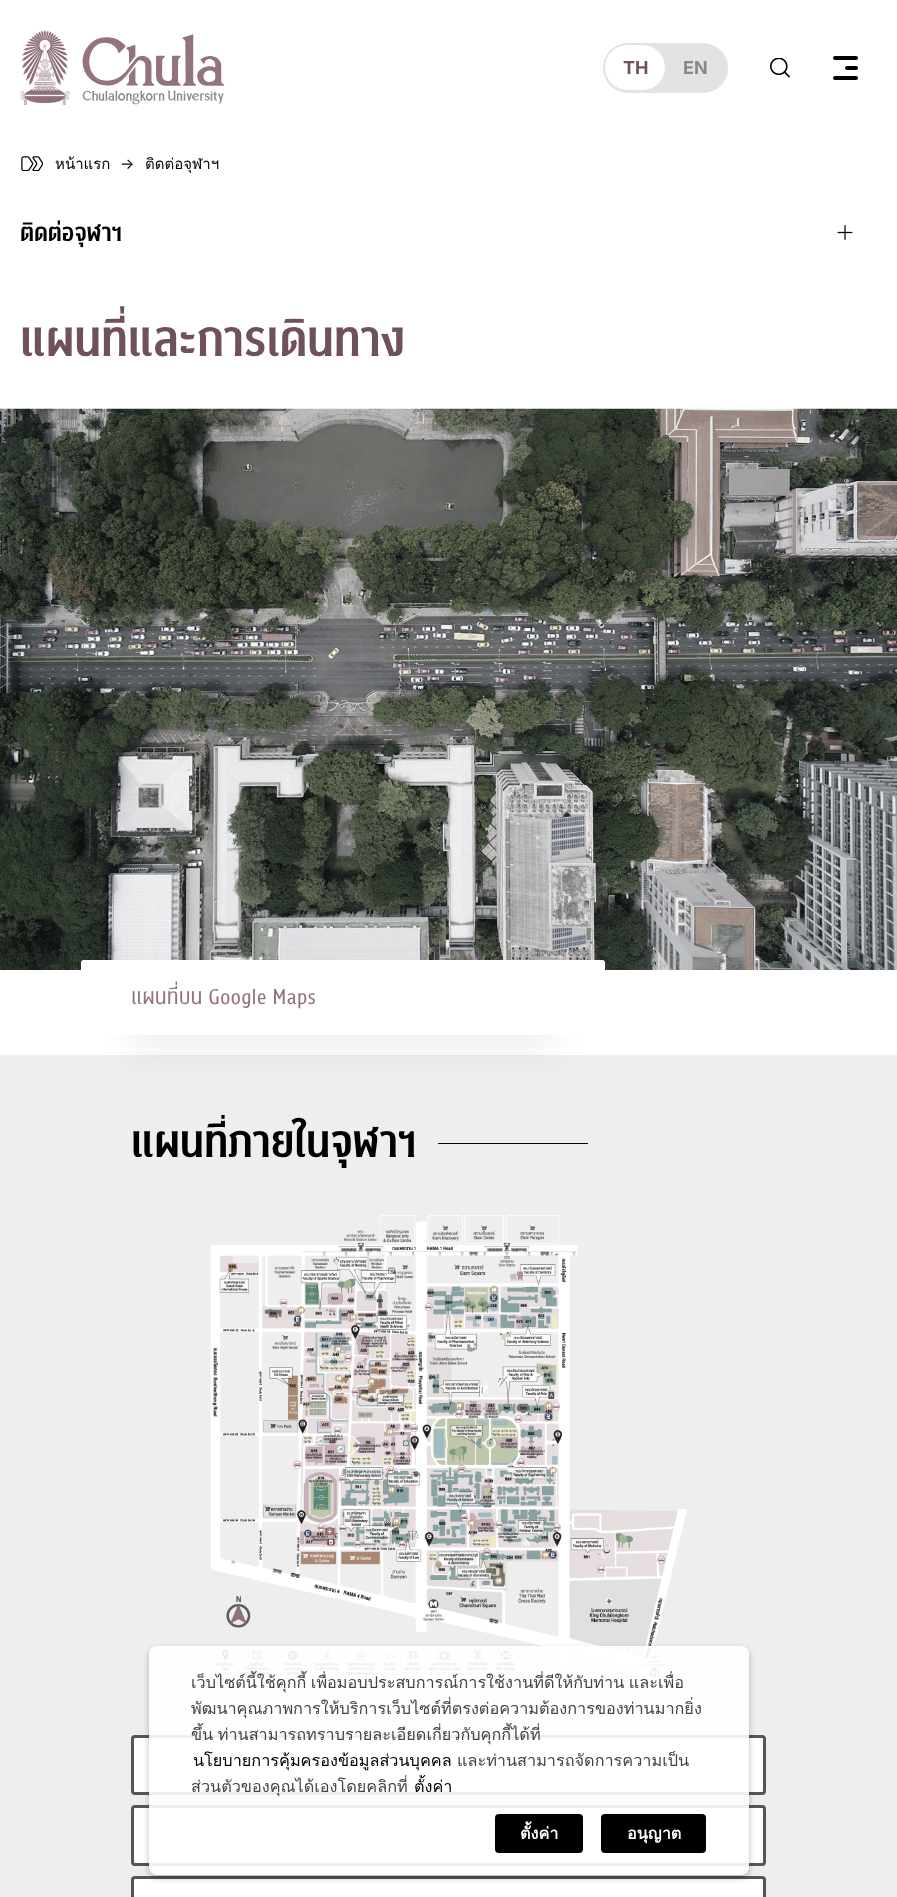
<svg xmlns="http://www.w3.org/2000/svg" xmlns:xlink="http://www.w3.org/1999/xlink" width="897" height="1897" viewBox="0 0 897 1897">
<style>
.cls-1{font:bold 18px Inter;fill:#6f515d}
.cls-2{font:bold 18px Inter;fill:#898989}
.cls-3{font:15px Loma;fill:#000000}
.cls-4{font:15px Inter;fill:#000000}
.cls-5{font:bold 25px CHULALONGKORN;fill:#000000}
.cls-6{font:bold 50px CHULALONGKORN;fill:#6f515d}
.cls-7{font:22.5px CHULALONGKORN;fill:#947380}
.cls-8{font:bold 45px CHULALONGKORN;fill:#000000}
.cls-9{font:16.25px Loma;fill:#444444}
.cls-10{font:16.25px Loma;fill:#000000}
.cls-11{font:bold 16.25px Loma;fill:#ffffff}
</style>
<defs>
<clipPath id="clip1"><path d="M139 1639H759V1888H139ZM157 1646H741C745.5 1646 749 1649.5 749 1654V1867C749 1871.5 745.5 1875 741 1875H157C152.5 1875 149 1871.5 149 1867V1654C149 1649.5 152.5 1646 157 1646Z" clip-rule="evenodd"/></clipPath>
<clipPath id="clip2"><rect x="131" y="1115" width="635" height="58"/></clipPath>
</defs>
<rect width="100%" height="100%" fill="#ffffff"/>
<image xlink:href="image0.png" x="20" y="30" width="205" height="75"/>
<rect fill="#e2e3e3" x="603" y="43" width="125" height="50" rx="25"/>
<rect fill="#ffffff" x="605" y="45" width="60" height="45" rx="22.5"/>
<image xlink:href="image1.png" x="770" y="58" width="20" height="20"/>
<rect fill="#000000" x="845" y="66" width="13" height="4" rx="2"/>
<rect fill="#000000" x="833" y="56" width="25" height="4" rx="2"/>
<rect fill="#000000" x="833" y="76" width="25" height="4" rx="2"/>
<image xlink:href="image2.png" x="21" y="156" width="22" height="15"/>
<image xlink:href="image3.png" x="837" y="225" width="16" height="15"/>
<image xlink:href="image4.png" x="0" y="408" width="897" height="562"/>
<rect fill="#eeeeee" x="0" y="1055" width="897" height="842"/>
<rect fill="#1a1924" fill-opacity="0.06" filter="blur(15px)" x="131" y="978" width="424" height="75"/>
<rect fill="#ffffff" x="81" y="960" width="524" height="75" rx="2.5"/>
<rect fill="#000000" x="438" y="1143" width="150" height="1"/>
<image xlink:href="image5.png" x="210" y="1215" width="477" height="477"/>
<rect fill="#ffffff" stroke="#555555" stroke-width="3" x="132.5" y="1736.5" width="632" height="57" rx="2.5"/>
<rect fill="#ffffff" stroke="#555555" stroke-width="3" x="132.5" y="1806.5" width="632" height="58" rx="2.5"/>
<rect fill="#ffffff" stroke="#555555" stroke-width="3" x="132.5" y="1877.5" width="632" height="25" rx="2.5"/>
<g clip-path="url(#clip1)">
<rect fill="#000000" fill-opacity="0.25" filter="blur(3px)" x="149" y="1649" width="600" height="229" rx="8"/>
</g>
<rect fill="#ffffff" fill-opacity="0.9" x="149" y="1646" width="600" height="229" rx="8"/>
<rect fill="#000000" x="495" y="1814" width="88" height="39" rx="4"/>
<rect fill="#000000" x="601" y="1814" width="105" height="39" rx="4"/>
<text class="cls-1" x="623" y="74">TH</text>
<text class="cls-2" x="683" y="74">EN</text>
<text class="cls-3" x="55" y="169">หน้าแรก</text>
<text class="cls-4" x="120" y="169">→</text>
<text class="cls-3" x="145" y="169">ติดต่อจุฬาฯ</text>
<text class="cls-5" x="20" y="241">ติดต่อจุฬาฯ</text>
<text class="cls-6" x="20" y="356">แผนที่และการเดินทาง</text>
<text class="cls-7" x="131" y="1004">แผนที่บน Google Maps</text>
<g clip-path="url(#clip2)">
<text class="cls-8" x="131" y="1157">แผนที่ภายในจุฬาฯ</text>
</g>
<text class="cls-9"><tspan x="191" y="1688" word-spacing="-1">เว็บไซต์นี้ใช้คุกกี้ เพื่อมอบประสบการณ์การใช้งานที่ดีให้กับท่าน และเพื่อ</tspan><tspan x="191" y="1714">พัฒนาคุณภาพการให้บริการเว็บไซต์ที่ตรงต่อความต้องการของท่านมากยิ่ง</tspan><tspan x="191" y="1740" word-spacing="-1">ขึ้น ท่านสามารถทราบรายละเอียดเกี่ยวกับคุกกี้ได้ที่</tspan></text>
<text class="cls-10" x="193" y="1766">นโยบายการคุ้มครองข้อมูลส่วนบุคคล</text>
<text class="cls-9" x="457" y="1766">และท่านสามารถจัดการความเป็น</text>
<text class="cls-9" x="191" y="1792">ส่วนตัวของคุณได้เองโดยคลิกที่</text>
<text class="cls-10" x="414" y="1792">ตั้งค่า</text>
<text class="cls-11" x="520" y="1839">ตั้งค่า</text>
<text class="cls-11" x="627" y="1839">อนุญาต</text>
</svg>
